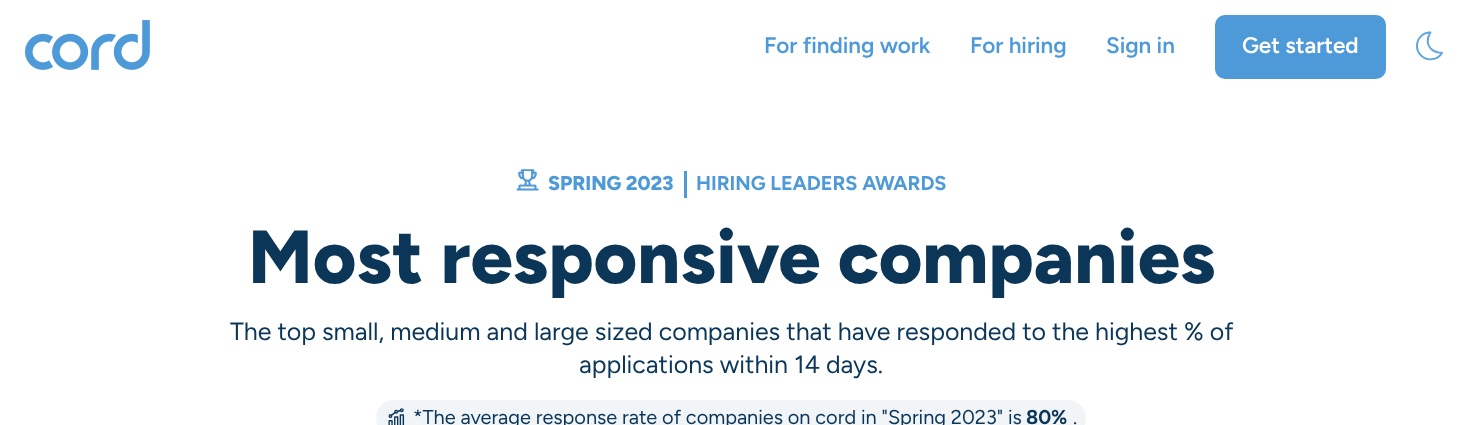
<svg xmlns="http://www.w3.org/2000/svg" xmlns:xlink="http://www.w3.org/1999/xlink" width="1462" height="425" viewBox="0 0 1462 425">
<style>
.cls-1{font:600 22.5px Figtree;letter-spacing:-0.05px;fill:#4e9ad9}
.cls-2{font:600 22.5px Figtree;letter-spacing:-0.05px;fill:#ffffff}
.cls-3{font:30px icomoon;letter-spacing:-0.05px;fill:#60a4dd}
.cls-4{font:bold 22.5px icomoon;letter-spacing:-0.05px;fill:#4e9ad9}
.cls-5{font:800 20px Figtree;letter-spacing:-0.05px;fill:#4e9ad9}
.cls-6{font:bold 20px Figtree;letter-spacing:-0.05px;fill:#4e9ad9}
.cls-7{font:800 75px Figtree;letter-spacing:-0.05px;fill:#0b3658}
.cls-8{font:25px Figtree;letter-spacing:-0.05px;fill:#0b3658}
.cls-9{font:22.5px icomoon;letter-spacing:-0.05px;fill:#0b3658}
.cls-10{font:20px Figtree;letter-spacing:-0.05px;fill:#0b3658}
.cls-11{font:bold 20px Figtree;letter-spacing:-0.05px;fill:#0b3658}
</style>
<rect width="100%" height="100%" fill="#ffffff"/>
<image xlink:href="image0.png" x="25" y="20" width="125" height="50"/>
<rect fill="#4e9ad9" stroke="#4e9ad9" stroke-width="3" x="1216.5" y="16.5" width="168" height="61" rx="8.5"/>
<rect fill="#4e9ad9" x="684" y="171" width="3" height="27"/>
<rect fill="#f1f5f8" x="376" y="400" width="710" height="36" rx="18"/>
<text class="cls-1" x="764" y="53">For finding work</text>
<text class="cls-1" x="970" y="53">For hiring</text>
<text class="cls-1" x="1106" y="53">Sign in</text>
<text class="cls-2" x="1242" y="53">Get started</text>
<text class="cls-3" x="1416" y="59">🌙</text>
<text class="cls-4" x="516" y="190">🏆</text>
<text class="cls-5" x="548" y="190">SPRING 2023</text>
<text class="cls-6" x="696" y="190">HIRING LEADERS AWARDS</text>
<text class="cls-7" x="248" y="283">Most responsive companies</text>
<text class="cls-8" x="230" y="340">The top small, medium and large sized companies that have responded to the highest % of</text>
<text class="cls-8" x="579" y="373">applications within 14 days.</text>
<text class="cls-9" x="386" y="428">📊</text>
<text class="cls-10" x="413" y="424">*The average response rate of companies on cord in "Spring 2023" is</text>
<text class="cls-11" x="1026" y="424">80%</text>
<text class="cls-10" x="1073" y="424">.</text>
</svg>
